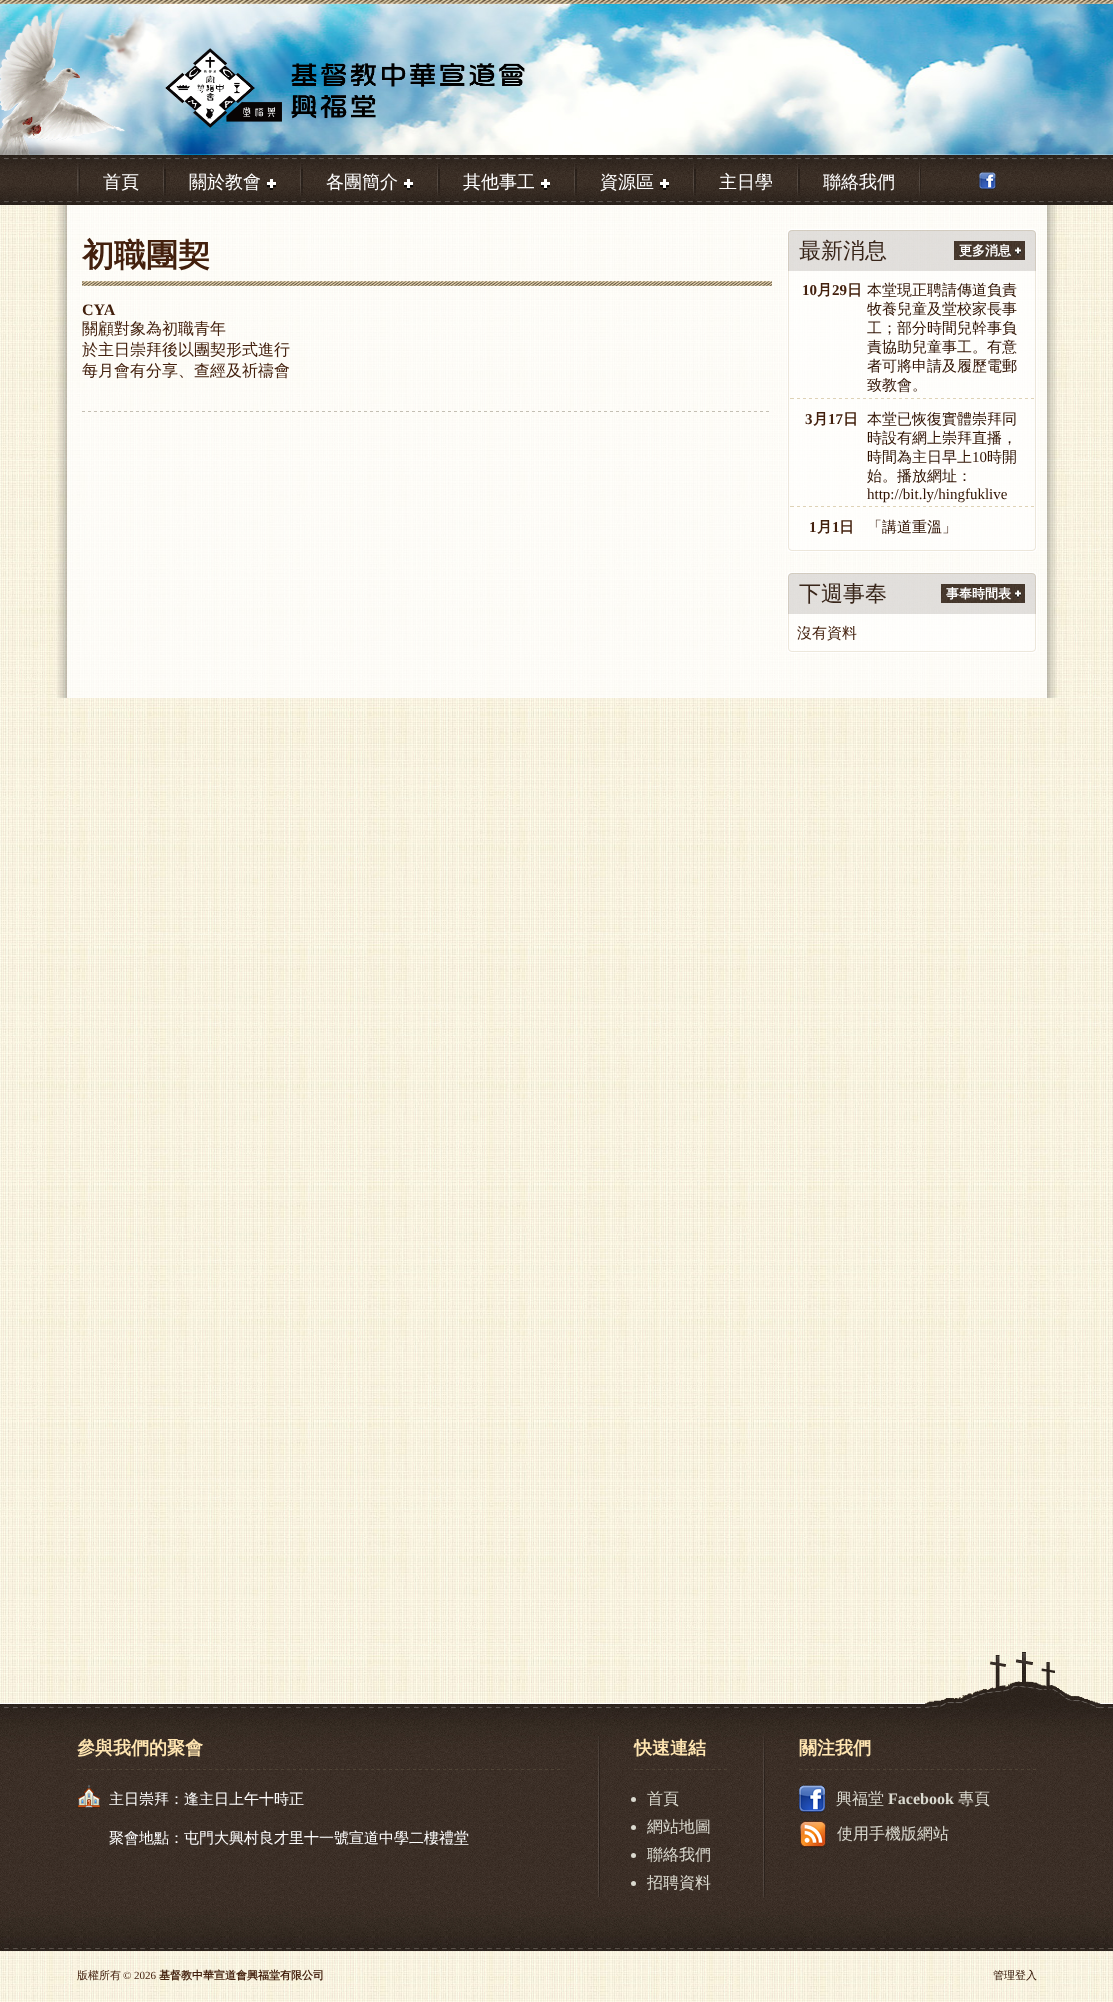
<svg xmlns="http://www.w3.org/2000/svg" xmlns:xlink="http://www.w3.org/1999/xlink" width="1113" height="2002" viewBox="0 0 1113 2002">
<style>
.cls-1{font:500 18px WenQuanYi Zen Hei;fill:#ffffff}
.cls-2{font:bold 32px WenQuanYi Zen Hei;fill:#43200d}
.cls-3{font:bold 16px Liberation Serif;fill:#43200d}
.cls-4{font:500 16px WenQuanYi Zen Hei;fill:#43200d}
.cls-5{font:500 22px WenQuanYi Zen Hei;fill:#382519}
.cls-6{font:bold 13px WenQuanYi Zen Hei;fill:#ffffff}
.cls-7{font:bold 15px Liberation Serif;fill:#43200d}
.cls-8{font:bold 15px WenQuanYi Zen Hei;fill:#43200d}
.cls-9{font:500 15px WenQuanYi Zen Hei;fill:#2f1100}
.cls-10{font:15px Liberation Serif;fill:#2f1100}
.cls-11{font:500 15px WenQuanYi Zen Hei;fill:#43200d}
.cls-12{font:bold 18px WenQuanYi Zen Hei;fill:#ffe6b2}
.cls-13{font:500 15px WenQuanYi Zen Hei;fill:#ffffff}
.cls-14{font:500 16px WenQuanYi Zen Hei;fill:#dad9cf}
.cls-15{font:bold 16px Liberation Serif;fill:#dad9cf}
.cls-16{font:500 11px WenQuanYi Zen Hei;fill:#43200d}
.cls-17{font:11px Liberation Serif;fill:#43200d}
.cls-18{font:bold 11px WenQuanYi Zen Hei;fill:#43200d}
.cls-19{font:500 11px WenQuanYi Zen Hei;fill:#2f1100}
</style>
<rect width="100%" height="100%" fill="#ffffff"/>
<image xlink:href="image0.png" x="0" y="205" width="1113" height="1797"/>
<image xlink:href="image1.png" x="0" y="0" width="1113" height="155"/>
<image xlink:href="image2.png" x="0" y="9" width="172" height="146"/>
<image xlink:href="image3.png" x="165" y="48" width="360" height="80"/>
<image xlink:href="image4.png" x="0" y="155" width="1113" height="50"/>
<image xlink:href="image5.png" x="77" y="159" width="3" height="41"/>
<image xlink:href="image5.png" x="163" y="159" width="3" height="41"/>
<image xlink:href="image6.png" x="164" y="164" width="1" height="32"/>
<image xlink:href="image9.png" x="300" y="159" width="3" height="38"/>
<image xlink:href="image7.png" x="301" y="164" width="1" height="34"/>
<image xlink:href="image8.png" x="267" y="179" width="9" height="11"/>
<image xlink:href="image12.png" x="437" y="159" width="3" height="41"/>
<image xlink:href="image10.png" x="438" y="164" width="1" height="31"/>
<image xlink:href="image11.png" x="404" y="179" width="9" height="11"/>
<image xlink:href="image14.png" x="574" y="159" width="3" height="42"/>
<image xlink:href="image10.png" x="575" y="164" width="1" height="31"/>
<image xlink:href="image13.png" x="541" y="179" width="9" height="11"/>
<image xlink:href="image16.png" x="693" y="159" width="3" height="40"/>
<image xlink:href="image10.png" x="694" y="164" width="1" height="31"/>
<image xlink:href="image15.png" x="660" y="179" width="9" height="11"/>
<image xlink:href="image12.png" x="797" y="159" width="3" height="41"/>
<image xlink:href="image10.png" x="798" y="164" width="1" height="31"/>
<image xlink:href="image17.png" x="919" y="159" width="2" height="40"/>
<image xlink:href="image18.png" x="979" y="172" width="17" height="18"/>
<image xlink:href="image19.png" x="57" y="205" width="1000" height="493"/>
<image xlink:href="image20.png" x="82" y="281" width="690" height="5"/>
<image xlink:href="image21.png" x="82" y="411" width="687" height="1"/>
<image xlink:href="image22.png" x="787" y="229" width="250" height="42"/>
<image xlink:href="image23.png" x="954" y="241" width="71" height="19"/>
<image xlink:href="image24.png" x="787" y="271" width="250" height="281"/>
<image xlink:href="image25.png" x="790" y="398" width="244" height="1"/>
<image xlink:href="image26.png" x="790" y="506" width="244" height="1"/>
<image xlink:href="image27.png" x="787" y="572" width="250" height="42"/>
<image xlink:href="image28.png" x="941" y="584" width="84" height="19"/>
<image xlink:href="image29.png" x="787" y="614" width="250" height="39"/>
<image xlink:href="image30.png" x="0" y="1703" width="1113" height="248"/>
<image xlink:href="image31.png" x="925" y="1652" width="176" height="56"/>
<image xlink:href="image32.png" x="77" y="1769" width="487" height="1"/>
<image xlink:href="image33.png" x="77" y="1785" width="24" height="23"/>
<image xlink:href="image34.png" x="598" y="1736" width="2" height="161"/>
<image xlink:href="image35.png" x="634" y="1769" width="93" height="1"/>
<circle fill="#dad9cf" cx="633.5" cy="1799.5" r="2.5"/>
<circle fill="#dad9cf" cx="633.5" cy="1827.5" r="2.5"/>
<circle fill="#dad9cf" cx="633.5" cy="1855.5" r="2.5"/>
<circle fill="#dad9cf" cx="633.5" cy="1883.5" r="2.5"/>
<image xlink:href="image36.png" x="763" y="1736" width="2" height="161"/>
<image xlink:href="image37.png" x="799" y="1769" width="237" height="1"/>
<image xlink:href="image38.png" x="799" y="1785" width="26" height="28"/>
<image xlink:href="image39.png" x="800" y="1821" width="27" height="27"/>
<text class="cls-1" x="103" y="188">首頁</text>
<text class="cls-1" x="189" y="188">關於教會</text>
<text class="cls-1" x="326" y="188">各團簡介</text>
<text class="cls-1" x="463" y="188">其他事工</text>
<text class="cls-1" x="600" y="188">資源區</text>
<text class="cls-1" x="719" y="188">主日學</text>
<text class="cls-1" x="823" y="188">聯絡我們</text>
<text class="cls-2" x="82" y="266">初職團契</text>
<text class="cls-3" x="82" y="315">CYA</text>
<text class="cls-4"><tspan x="82" y="334">關顧對象為初職青年</tspan><tspan x="82" y="355">於主日崇拜後以團契形式進行</tspan><tspan x="82" y="376">每月會有分享、查經及祈禱會</tspan></text>
<text class="cls-5" x="799" y="258">最新消息</text>
<text class="cls-6" x="959" y="255">更多消息</text>
<text class="cls-7" x="802" y="295">10</text>
<text class="cls-8" x="817" y="295">月</text>
<text class="cls-7" x="832" y="295">29</text>
<text class="cls-8" x="847" y="295">日</text>
<text class="cls-9"><tspan x="867" y="295">本堂現正聘請傳道負責</tspan><tspan x="867" y="314">牧養兒童及堂校家長事</tspan><tspan x="867" y="333">工；部分時間兒幹事負</tspan><tspan x="867" y="352">責協助兒童事工。有意</tspan><tspan x="867" y="371">者可將申請及履歷電郵</tspan><tspan x="867" y="390">致教會。</tspan></text>
<text class="cls-7" x="805" y="424">3</text>
<text class="cls-8" x="813" y="424">月</text>
<text class="cls-7" x="828" y="424">17</text>
<text class="cls-8" x="843" y="424">日</text>
<text class="cls-9"><tspan x="867" y="424">本堂已恢復實體崇拜同</tspan><tspan x="867" y="443">時設有網上崇拜直播，</tspan><tspan x="867" y="462">時間為主日早上</tspan></text>
<text class="cls-10" x="972" y="462">10</text>
<text class="cls-9" x="987" y="462">時開</text>
<text class="cls-9" x="867" y="481">始。播放網址：</text>
<text class="cls-10" x="867" y="499">http://bit.ly/hingfuklive</text>
<text class="cls-7" x="809" y="532">1</text>
<text class="cls-8" x="817" y="532">月</text>
<text class="cls-7" x="832" y="532">1</text>
<text class="cls-8" x="839" y="532">日</text>
<text class="cls-9" x="867" y="532">「講道重溫」</text>
<text class="cls-5" x="799" y="601">下週事奉</text>
<text class="cls-6" x="946" y="598">事奉時間表</text>
<text class="cls-11" x="797" y="638">沒有資料</text>
<text class="cls-12" x="77" y="1754">參與我們的聚會</text>
<text class="cls-13" x="109" y="1804">主日崇拜：逢主日上午十時正</text>
<text class="cls-13" x="109" y="1843">聚會地點：屯門大興村良才里十一號宣道中學二樓禮堂</text>
<text class="cls-12" x="634" y="1754">快速連結</text>
<text class="cls-14"><tspan x="647" y="1804">首頁</tspan><tspan x="647" y="1832">網站地圖</tspan><tspan x="647" y="1860">聯絡我們</tspan><tspan x="647" y="1888">招聘資料</tspan></text>
<text class="cls-12" x="799" y="1754">關注我們</text>
<text class="cls-14" x="836" y="1804">興福堂</text>
<text class="cls-15" x="888" y="1804">Facebook</text>
<text class="cls-14" x="958" y="1804">專頁</text>
<text class="cls-14" x="837" y="1839">使用手機版網站</text>
<text class="cls-16" x="77" y="1979">版權所有</text>
<text class="cls-17" x="123" y="1979">© 2026</text>
<text class="cls-18" x="159" y="1979">基督教中華宣道會興福堂有限公司</text>
<text class="cls-19" x="993" y="1979">管理登入</text>
</svg>
